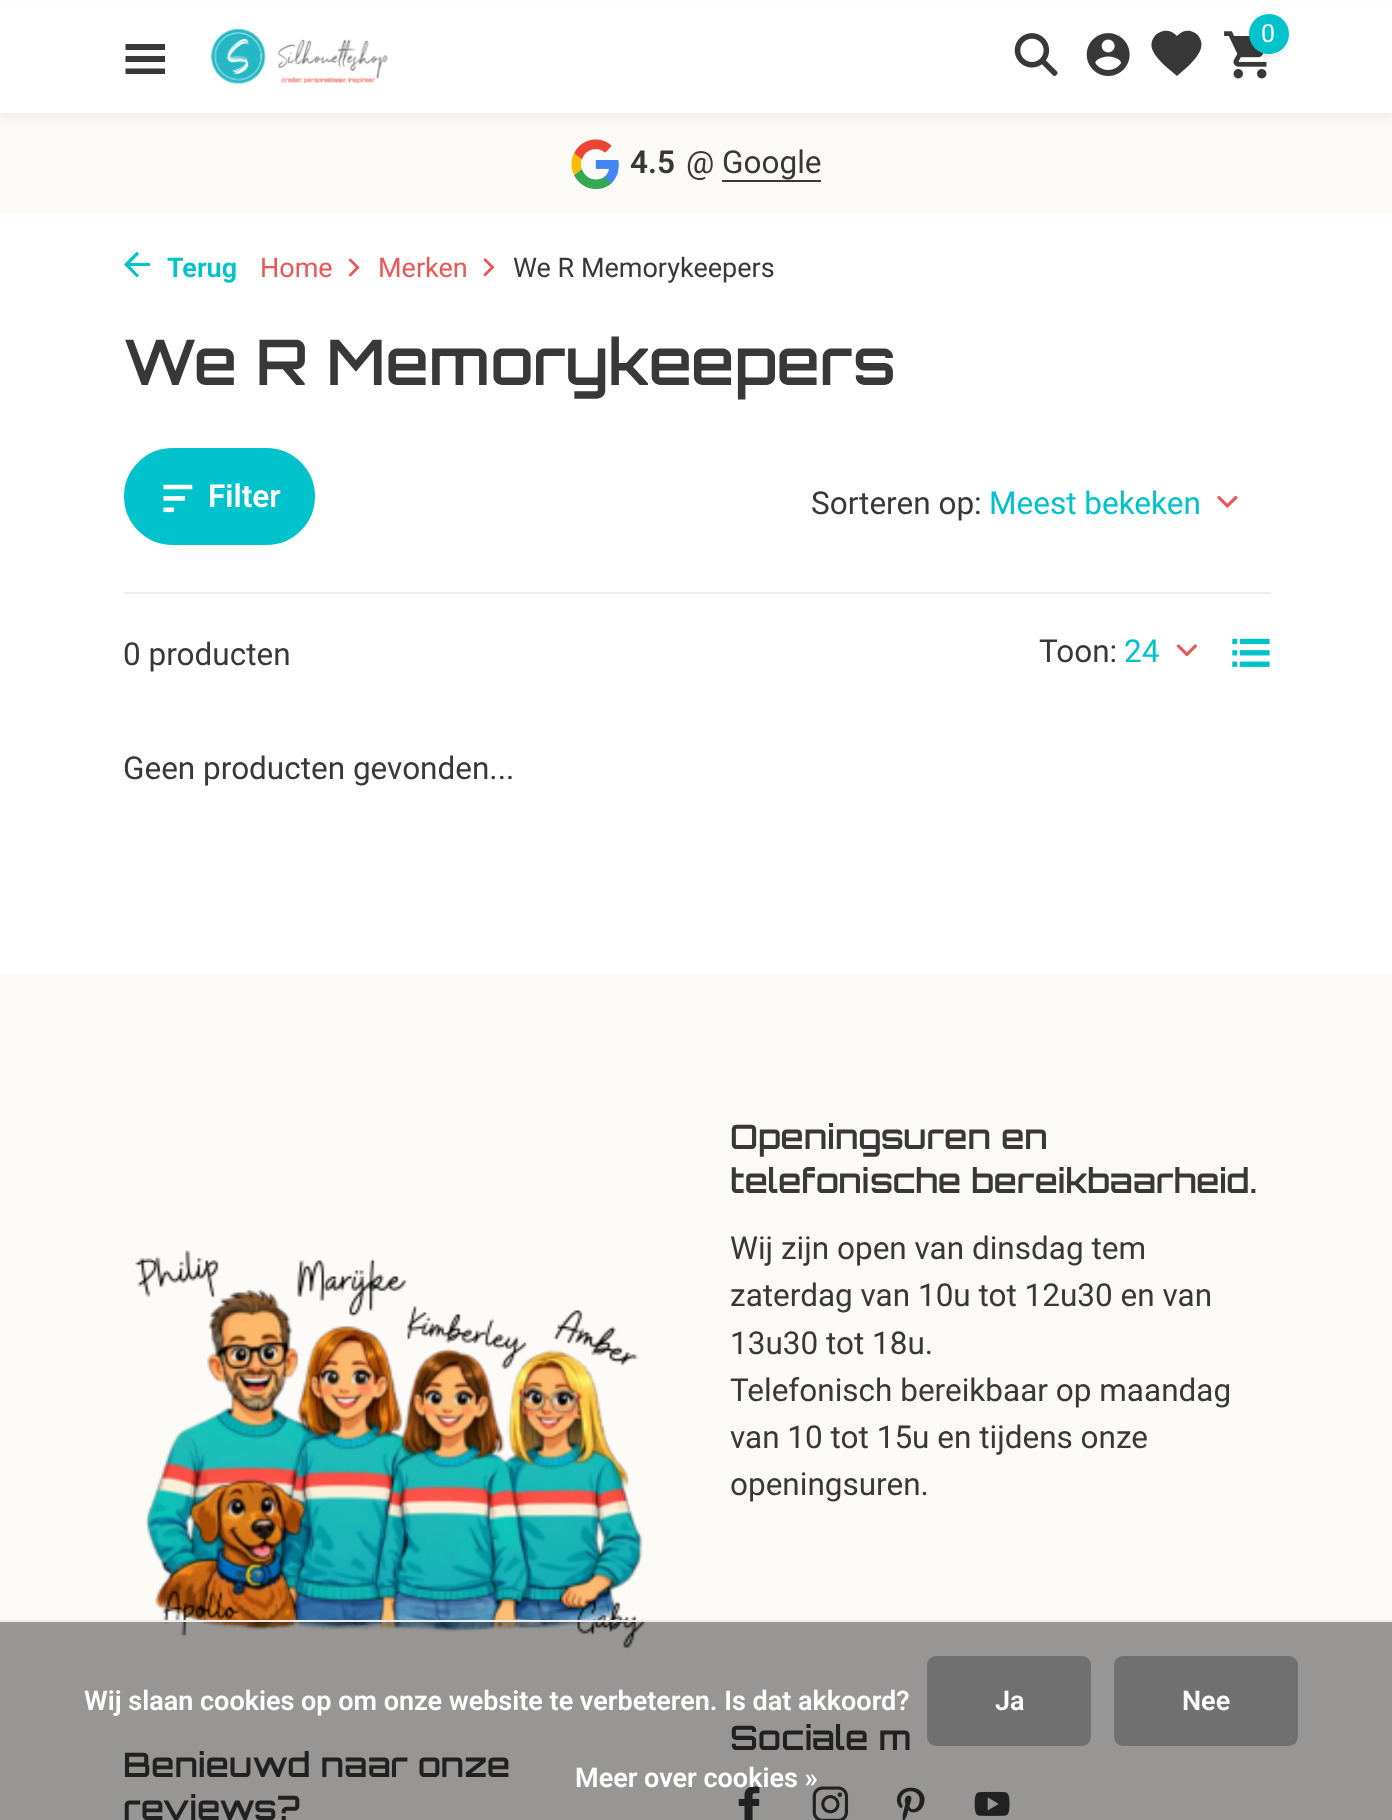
<svg xmlns="http://www.w3.org/2000/svg" xmlns:xlink="http://www.w3.org/1999/xlink" width="1392" height="1820" viewBox="0 0 1392 1820">
<style>
.cls-1{font:25px Roboto;fill:#ffffff}
.cls-2{font:600 31.5px Roboto;fill:#383838}
.cls-3{font:31.5px Roboto;fill:#383838}
.cls-4{font:600 27px Roboto;fill:#00c2cb}
.cls-5{font:27px Roboto;fill:#eb5757}
.cls-6{font:27px Roboto;fill:#383838}
.cls-7{font:600 63px Orbitron;fill:#383838}
.cls-8{font:600 31.5px Roboto;fill:#ffffff}
.cls-9{font:31.5px Roboto;fill:#00c2cb}
.cls-10{font:600 33.75px Orbitron;fill:#383838}
.cls-11{font:600 27px Roboto;fill:#ffffff}
</style>
<rect width="100%" height="100%" fill="#ffffff"/>
<rect fill="#fcfaf7" x="0" y="113" width="1392" height="101"/>
<rect fill="#000000" fill-opacity="0.04" filter="blur(3.5px)" x="0" y="7" width="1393" height="112"/>
<rect fill="#ffffff" x="0" y="5" width="1392" height="108"/>
<path fill="#383838" d="M125.5 44H165V50H125.5ZM125.5 56H165V62H125.5ZM125.5 68.5H165V74H125.5Z"/>
<image xlink:href="image0.png" x="211" y="29" width="177" height="55"/>
<image xlink:href="image1.png" x="1014" y="33" width="44" height="43"/>
<image xlink:href="image2.png" x="1086" y="33" width="44" height="43"/>
<path fill="#383838" d="M1177 36C1188 23 1207 36 1200 51C1195 61 1185 69 1177 76C1169 69 1158 61 1153 51C1146 36 1166 23 1177 36Z"/>
<image xlink:href="image3.png" x="1224" y="31" width="43" height="48"/>
<rect fill="#000000" fill-opacity="0.06" filter="blur(2px)" x="1249" y="18" width="40" height="41" rx="20"/>
<circle fill="#00c2cb" cx="1269" cy="34" r="20"/>
<image xlink:href="image4.png" x="571" y="139" width="48" height="50"/>
<rect fill="#383838" x="722" y="180" width="99" height="2"/>
<path fill="#00c2cb" d="M150 263H130L139 254L137 251.5L124 264.5L137 277.5L139 275.5L130 266H150Z"/>
<image xlink:href="image5.png" x="348" y="258" width="12" height="19"/>
<image xlink:href="image6.png" x="483" y="258" width="12" height="19"/>
<rect fill="#00c2cb" stroke="#00c2cb" stroke-width="2" x="125" y="449" width="189" height="95" rx="47.5"/>
<image xlink:href="image7.png" x="163" y="484" width="30" height="29"/>
<image xlink:href="image8.png" x="1217" y="495" width="21" height="13"/>
<image xlink:href="image9.png" x="1176" y="644" width="21" height="13"/>
<image xlink:href="image10.png" x="1232" y="638" width="38" height="29"/>
<rect fill="#ececec" x="124" y="592" width="1147" height="2"/>
<rect fill="#fcfaf7" x="0" y="974" width="1392" height="846"/>
<image xlink:href="image11.png" x="135" y="1250" width="511" height="399"/>
<image xlink:href="image12.png" x="738" y="1786" width="22" height="34"/>
<image xlink:href="image13.png" x="812" y="1786" width="37" height="34"/>
<image xlink:href="image14.png" x="896" y="1787" width="29" height="33"/>
<image xlink:href="image15.png" x="974" y="1791" width="36" height="25"/>
<rect fill="#ececec" x="0" y="1620" width="1392" height="2"/>
<text class="cls-1" x="1261" y="42">0</text>
<text class="cls-2" x="630" y="173">4.5</text>
<text class="cls-3" x="686" y="173">@ Google</text>
<text class="cls-4" x="167" y="277">Terug</text>
<text class="cls-5" x="260" y="277">Home</text>
<text class="cls-5" x="378" y="277">Merken</text>
<text class="cls-6" x="513" y="277">We R Memorykeepers</text>
<text class="cls-7" x="123" y="385">We R Memorykeepers</text>
<text class="cls-8" x="208" y="507">Filter</text>
<text class="cls-3" x="811" y="514">Sorteren op:</text>
<text class="cls-9" x="989" y="514">Meest bekeken</text>
<text class="cls-3" x="1039" y="662">Toon:</text>
<text class="cls-9" x="1124" y="662">24</text>
<text class="cls-3" x="123" y="665">0 producten</text>
<text class="cls-3" x="123" y="779">Geen producten gevonden...</text>
<text class="cls-10"><tspan x="730" y="1149">Openingsuren en</tspan><tspan x="730" y="1193">telefonische bereikbaarheid.</tspan></text>
<text class="cls-3"><tspan x="730" y="1259">Wij zijn open van dinsdag tem</tspan><tspan x="730" y="1306">zaterdag van 10u tot 12u30 en van</tspan><tspan x="730" y="1354">13u30 tot 18u.</tspan><tspan x="730" y="1401">Telefonisch bereikbaar op maandag</tspan><tspan x="730" y="1448">van 10 tot 15u en tijdens onze</tspan><tspan x="730" y="1495">openingsuren.</tspan></text>
<text class="cls-10" x="730" y="1750">Sociale m</text>
<text class="cls-10"><tspan x="123" y="1777">Benieuwd naar onze</tspan><tspan x="123" y="1820">reviews?</tspan></text>
<rect fill="#000000" fill-opacity="0.4" x="0" y="1622" width="1392" height="198"/>
<text class="cls-11" x="84" y="1710">Wij slaan cookies op om onze website te verbeteren. Is dat akkoord?</text>
<rect fill="#707070" x="927" y="1656" width="164" height="90" rx="9"/>
<text class="cls-11" x="995" y="1710">Ja</text>
<rect fill="#707070" x="1114" y="1656" width="184" height="90" rx="9"/>
<text class="cls-11" x="1182" y="1710">Nee</text>
<text class="cls-11" x="575" y="1787">Meer over cookies »</text>
</svg>
